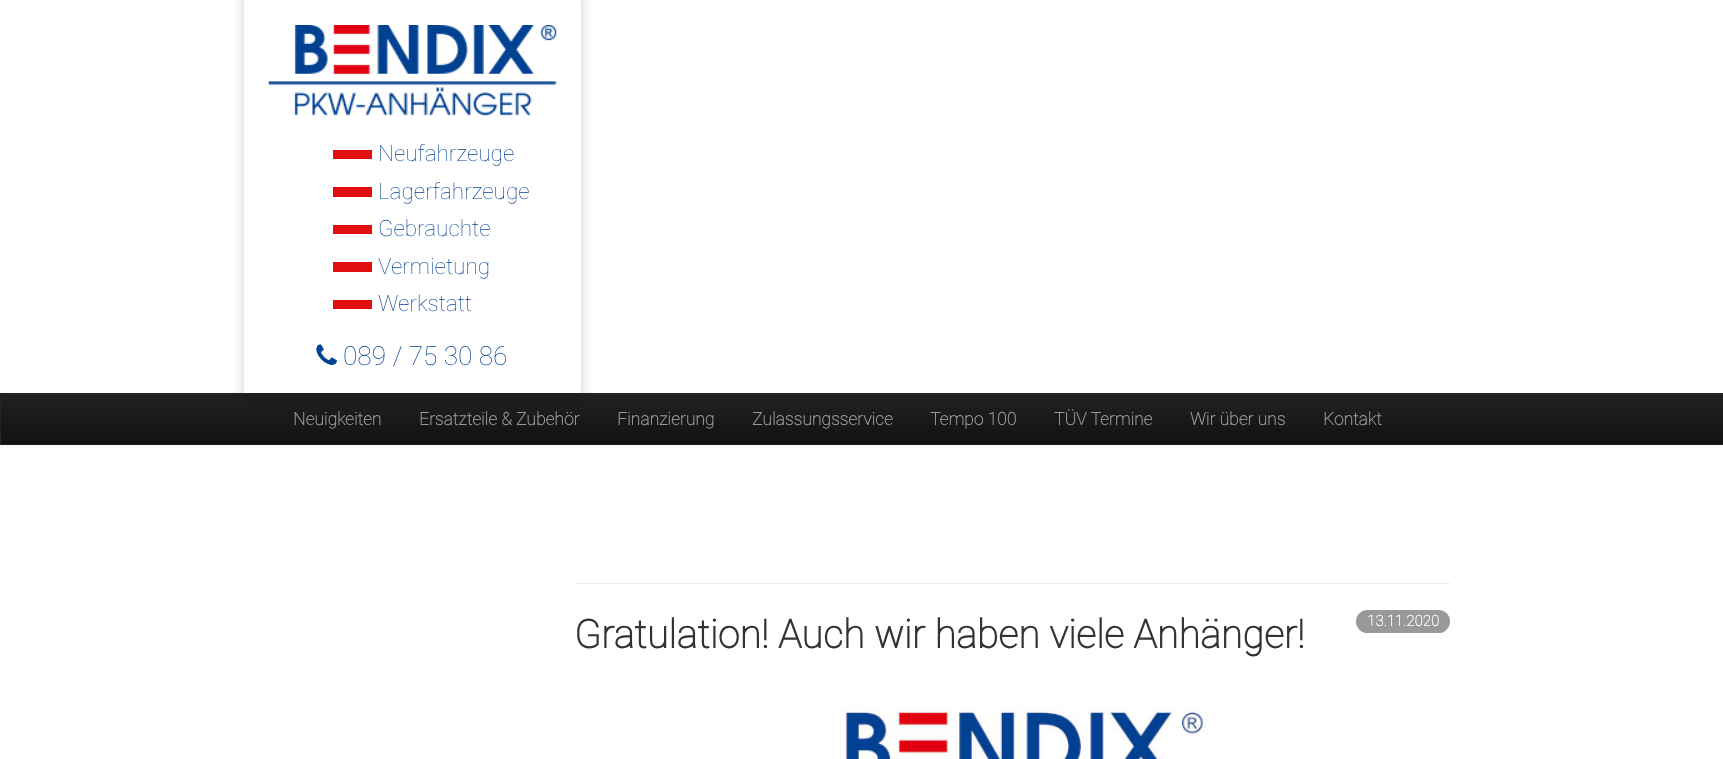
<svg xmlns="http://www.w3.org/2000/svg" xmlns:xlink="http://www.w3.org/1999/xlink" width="1723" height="759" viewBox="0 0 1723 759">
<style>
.cls-1{font:100 22.5px Roboto;fill:#004193}
.cls-2{font:100 26.25px Roboto;fill:#004193}
.cls-3{font:bold 17.5px Roboto;fill:#999999}
.cls-4{font:bold 39.4px Roboto;fill:#333333}
.cls-5{font:bold 15px Roboto;fill:#ffffff}
</style>
<defs>
<linearGradient id="g1" gradientUnits="userSpaceOnUse" x1="862" y1="394" x2="862" y2="444"><stop offset="0" stop-color="#222222"/><stop offset="1" stop-color="#111111"/></linearGradient>
<clipPath id="clip1"><path d="M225 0H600V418H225ZM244-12H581V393H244Z" clip-rule="evenodd"/></clipPath>
</defs>
<rect width="100%" height="100%" fill="#ffffff"/>
<rect fill="#000000" fill-opacity="0.07" filter="blur(2.5px)" x="0" y="394" width="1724" height="52"/>
<rect fill="url(#g1)" x="1" y="394" width="1722" height="50"/>
<rect fill="none" stroke="#252525" x="0.5" y="393.5" width="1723" height="51"/>
<g clip-path="url(#clip1)">
<rect fill="#000000" fill-opacity="0.2" filter="blur(6px)" x="244" y="-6" width="337" height="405"/>
</g>
<rect fill="#ffffff" fill-opacity="0.8" x="244" y="392" width="337" height="1"/>
<image xlink:href="image0.png" x="268" y="25" width="289" height="91"/>
<rect fill="#e20f10" x="333" y="150" width="39" height="9"/>
<rect fill="#e20f10" x="333" y="187" width="39" height="10"/>
<rect fill="#e20f10" x="333" y="225" width="39" height="9"/>
<rect fill="#e20f10" x="333" y="262" width="39" height="10"/>
<rect fill="#e20f10" x="333" y="300" width="39" height="9"/>
<image xlink:href="image1.png" x="316" y="344" width="21" height="21"/>
<rect fill="#eeeeee" x="575" y="583" width="875" height="1"/>
<rect fill="#999999" x="1356" y="610" width="94" height="23" rx="11.5"/>
<image xlink:href="image2.png" x="840" y="706" width="367" height="53"/>
<text class="cls-1"><tspan x="378" y="161">Neufahrzeuge</tspan><tspan x="378" y="199">Lagerfahrzeuge</tspan><tspan x="378" y="236">Gebrauchte</tspan><tspan x="378" y="274">Vermietung</tspan><tspan x="378" y="311">Werkstatt</tspan></text>
<text class="cls-2" x="343" y="365">089 / 75 30 86</text>
<text class="cls-3" x="293" y="425">Neuigkeiten</text>
<text class="cls-3" x="419" y="425">Ersatzteile &amp; Zubehör</text>
<text class="cls-3" x="617" y="425">Finanzierung</text>
<text class="cls-3" x="752" y="425">Zulassungsservice</text>
<text class="cls-3" x="930" y="425">Tempo 100</text>
<text class="cls-3" x="1054" y="425">TÜV Termine</text>
<text class="cls-3" x="1190" y="425">Wir über uns</text>
<text class="cls-3" x="1323" y="425">Kontakt</text>
<text class="cls-4" x="574" y="648">Gratulation! Auch wir haben viele Anhänger!</text>
<text class="cls-5" x="1367" y="626">13.11.2020</text>
</svg>
